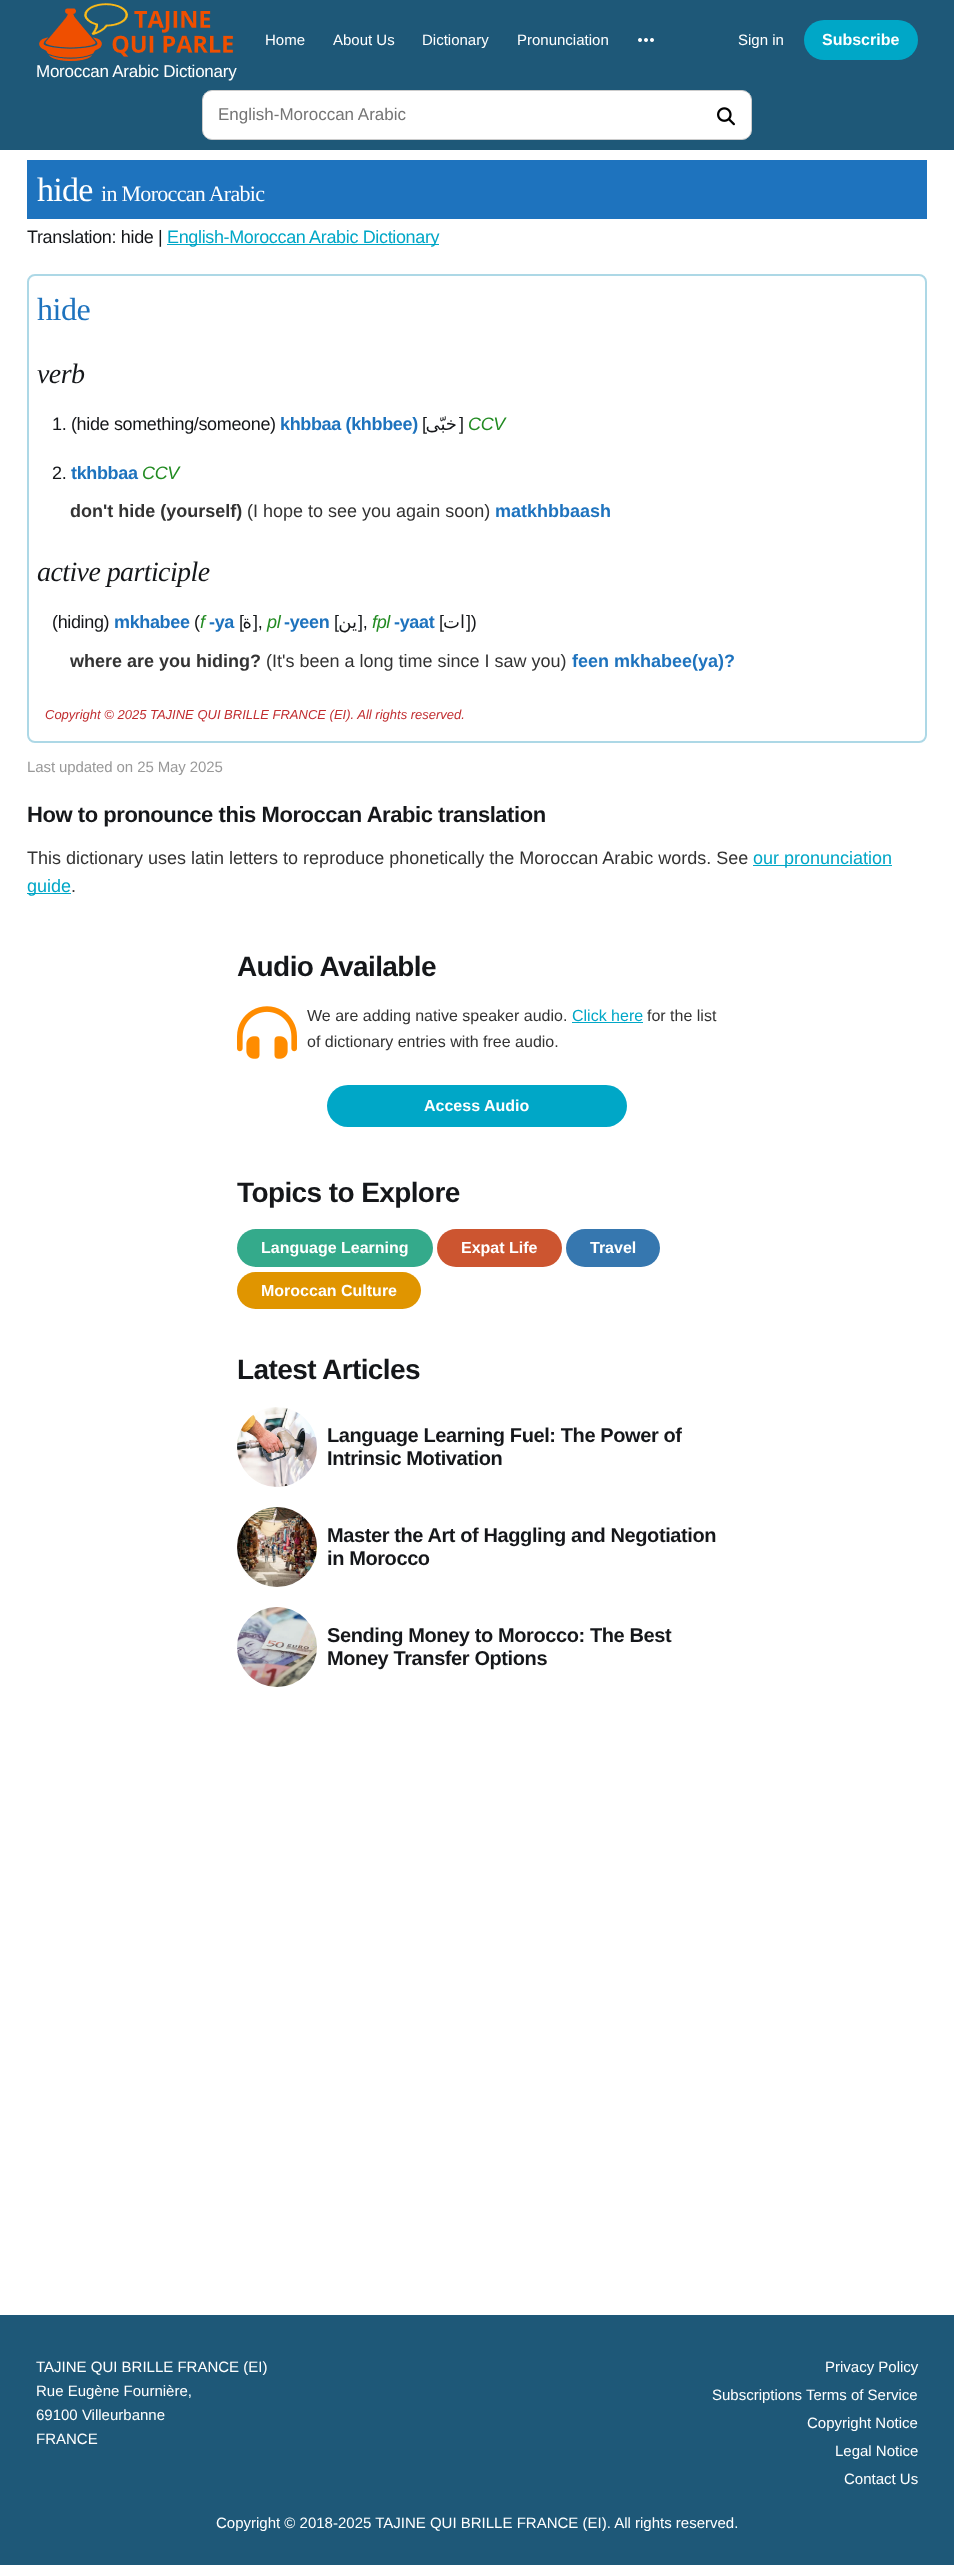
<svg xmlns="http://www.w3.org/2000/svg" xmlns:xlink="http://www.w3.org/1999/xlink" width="954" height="2565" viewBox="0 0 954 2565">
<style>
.cls-1{font:15px Liberation Sans;fill:#ffffff}
.cls-2{font:bold 16px Liberation Sans;fill:#ffffff}
.cls-3{font:17px Liberation Sans;letter-spacing:-0.25px;fill:#ffffff}
.cls-4{font:17px Liberation Sans;fill:#757575}
.cls-5{font:34px Liberation Serif;letter-spacing:-0.7px;fill:#ffffff}
.cls-6{font:22px Liberation Serif;letter-spacing:-0.7px;fill:#ffffff}
.cls-7{font:18px Liberation Sans;letter-spacing:-0.35px;fill:#15171a}
.cls-8{font:18px Liberation Sans;letter-spacing:-0.35px;fill:#00a7c7}
.cls-9{font:32px Liberation Serif;letter-spacing:-0.5px;fill:#1e73be}
.cls-10{font:italic 28px Liberation Serif;letter-spacing:-0.6px;fill:#15171a}
.cls-11{font:bold 18px Liberation Sans;letter-spacing:-0.35px;fill:#1e73be}
.cls-12{font:18px DejaVu Sans;letter-spacing:-0.35px;direction:rtl;fill:#15171a}
.cls-13{font:italic 18px Liberation Sans;letter-spacing:-0.35px;fill:#228b22}
.cls-14{font:bold 18px Liberation Sans;fill:#333333}
.cls-15{font:18px Liberation Sans;fill:#333333}
.cls-16{font:bold 18px Liberation Sans;fill:#1e73be}
.cls-17{font:italic 13px Liberation Sans;fill:#c12d30}
.cls-18{font:15px Liberation Sans;letter-spacing:-0.1px;fill:#999999}
.cls-19{font:bold 22px Liberation Sans;letter-spacing:-0.45px;fill:#15171a}
.cls-20{font:18px Liberation Sans;fill:#00a7c7}
.cls-21{font:bold 28px Liberation Sans;letter-spacing:-0.6px;fill:#15171a}
.cls-22{font:16px Liberation Sans;fill:#333333}
.cls-23{font:16px Liberation Sans;fill:#00a7c7}
.cls-24{font:bold 20px Liberation Sans;letter-spacing:-0.4px;fill:#15171a}
</style>
<rect width="100%" height="100%" fill="#ffffff"/>
<rect fill="#1e5878" x="0" y="0" width="954" height="150"/>
<image xlink:href="image0.png" x="638" y="38" width="16" height="4"/>
<rect fill="#00a7c7" x="804" y="20" width="114" height="40" rx="20"/>
<image xlink:href="image1.png" x="39" y="3" width="194" height="58"/>
<rect fill="#ffffff" stroke="#cccccc" x="202.5" y="90.5" width="549" height="49" rx="9.5"/>
<image xlink:href="image2.png" x="717" y="107" width="18" height="19"/>
<rect fill="#1e73be" x="27" y="160" width="900" height="59"/>
<rect fill="#00a7c7" x="167" y="244" width="272" height="1"/>
<rect fill="none" stroke="#add8e6" stroke-width="2" x="28" y="275" width="898" height="467" rx="7"/>
<rect fill="#00a7c7" x="753" y="865" width="139" height="1"/>
<rect fill="#00a7c7" x="27" y="893" width="44" height="1"/>
<image xlink:href="image3.png" x="237" y="1006" width="60" height="53"/>
<rect fill="#00a7c7" x="572" y="1022" width="71" height="1"/>
<rect fill="#00a7c7" x="327" y="1085" width="300" height="42" rx="21"/>
<rect fill="#34aa8b" x="237" y="1229" width="196" height="38" rx="19"/>
<rect fill="#cc5530" x="437" y="1229" width="125" height="38" rx="19"/>
<rect fill="#3677af" x="566" y="1229" width="94" height="38" rx="19"/>
<rect fill="#e09500" x="237" y="1272" width="184" height="37" rx="18.5"/>
<image xlink:href="image4.png" x="237" y="1407" width="80" height="80"/>
<image xlink:href="image5.png" x="237" y="1507" width="80" height="80"/>
<image xlink:href="image6.png" x="237" y="1607" width="80" height="80"/>
<rect fill="#1e5878" x="0" y="2315" width="954" height="250"/>
<text class="cls-1" x="265" y="45">Home</text>
<text class="cls-1" x="333" y="45">About Us</text>
<text class="cls-1" x="422" y="45">Dictionary</text>
<text class="cls-1" x="517" y="45">Pronunciation</text>
<text class="cls-1" x="738" y="45">Sign in</text>
<text class="cls-2" x="822" y="45">Subscribe</text>
<text class="cls-3" x="36" y="77">Moroccan Arabic Dictionary</text>
<text class="cls-4" x="218" y="120">English-Moroccan Arabic</text>
<text class="cls-5" x="37" y="201">hide</text>
<text class="cls-6" x="101" y="201">in Moroccan Arabic</text>
<text class="cls-7" x="27" y="243">Translation: hide |</text>
<text class="cls-8" x="167" y="243">English-Moroccan Arabic Dictionary</text>
<text class="cls-9" x="37" y="320">hide</text>
<text class="cls-10" x="37" y="383">verb</text>
<text class="cls-7" x="52" y="430">1. (hide something/someone)</text>
<text class="cls-11" x="280" y="430">khbbaa (khbbee)</text>
<text class="cls-7" x="422" y="430">[</text>
<text class="cls-12" x="457" y="430">خبّى</text>
<text class="cls-7" x="459" y="430">]</text>
<text class="cls-13" x="468" y="430">CCV</text>
<text class="cls-7" x="52" y="479">2.</text>
<text class="cls-11" x="71" y="479">tkhbbaa</text>
<text class="cls-13" x="142" y="479">CCV</text>
<text class="cls-14" x="70" y="517">don't hide (yourself)</text>
<text class="cls-15" x="247" y="517">(I hope to see you again soon)</text>
<text class="cls-16" x="495" y="517">matkhbbaash</text>
<text class="cls-10" x="37" y="581">active participle</text>
<text class="cls-7" x="52" y="628">(hiding)</text>
<text class="cls-11" x="114" y="628">mkhabee</text>
<text class="cls-7" x="194" y="628">(</text>
<text class="cls-13" x="200" y="628">f</text>
<text class="cls-11" x="209" y="628">-ya</text>
<text class="cls-7" x="239" y="628">[</text>
<text class="cls-12" x="252" y="628">ة</text>
<text class="cls-7" x="253" y="628">],</text>
<text class="cls-13" x="267" y="628">pl</text>
<text class="cls-11" x="284" y="628">-yeen</text>
<text class="cls-7" x="334" y="628">[</text>
<text class="cls-12" x="357" y="628">ين</text>
<text class="cls-7" x="358" y="628">],</text>
<text class="cls-13" x="372" y="628">fpl</text>
<text class="cls-11" x="394" y="628">-yaat</text>
<text class="cls-7" x="439" y="628">[</text>
<text class="cls-12" x="465" y="628">ات</text>
<text class="cls-7" x="466" y="628">])</text>
<text class="cls-14" x="70" y="667">where are you hiding?</text>
<text class="cls-15" x="266" y="667">(It's been a long time since I saw you)</text>
<text class="cls-16" x="572" y="667">feen mkhabee(ya)?</text>
<text class="cls-17" x="45" y="719">Copyright © 2025 TAJINE QUI BRILLE FRANCE (EI). All rights reserved.</text>
<text class="cls-18" x="27" y="772">Last updated on 25 May 2025</text>
<text class="cls-19" x="27" y="822">How to pronounce this Moroccan Arabic translation</text>
<text class="cls-15" x="27" y="864">This dictionary uses latin letters to reproduce phonetically the Moroccan Arabic words. See</text>
<text class="cls-20" x="753" y="864">our pronunciation</text>
<text class="cls-20" x="27" y="892">guide</text>
<text class="cls-15" x="71" y="892">.</text>
<text class="cls-21" x="237" y="976">Audio Available</text>
<text class="cls-22" x="307" y="1021">We are adding native speaker audio.</text>
<text class="cls-23" x="572" y="1021">Click here</text>
<text class="cls-22" x="647" y="1021">for the list</text>
<text class="cls-22" x="307" y="1047">of dictionary entries with free audio.</text>
<text class="cls-2" x="424" y="1111">Access Audio</text>
<text class="cls-21" x="237" y="1202">Topics to Explore</text>
<text class="cls-2" x="261" y="1253">Language Learning</text>
<text class="cls-2" x="461" y="1253">Expat Life</text>
<text class="cls-2" x="590" y="1253">Travel</text>
<text class="cls-2" x="261" y="1296">Moroccan Culture</text>
<text class="cls-21" x="237" y="1379">Latest Articles</text>
<text class="cls-24"><tspan x="327" y="1442">Language Learning Fuel: The Power of</tspan><tspan x="327" y="1465">Intrinsic Motivation</tspan></text>
<text class="cls-24"><tspan x="327" y="1542">Master the Art of Haggling and Negotiation</tspan><tspan x="327" y="1565">in Morocco</tspan></text>
<text class="cls-24"><tspan x="327" y="1642">Sending Money to Morocco: The Best</tspan><tspan x="327" y="1665">Money Transfer Options</tspan></text>
<text class="cls-1"><tspan x="36" y="2372">TAJINE QUI BRILLE FRANCE (EI)</tspan><tspan x="36" y="2396">Rue Eugène Fournière,</tspan><tspan x="36" y="2420">69100 Villeurbanne</tspan><tspan x="36" y="2444">FRANCE</tspan></text>
<text class="cls-1" x="825" y="2372">Privacy Policy</text>
<text class="cls-1" x="712" y="2400">Subscriptions Terms of Service</text>
<text class="cls-1" x="807" y="2428">Copyright Notice</text>
<text class="cls-1" x="835" y="2456">Legal Notice</text>
<text class="cls-1" x="844" y="2484">Contact Us</text>
<text class="cls-1" x="216" y="2528">Copyright © 2018-2025 TAJINE QUI BRILLE FRANCE (EI). All rights reserved.</text>
</svg>
